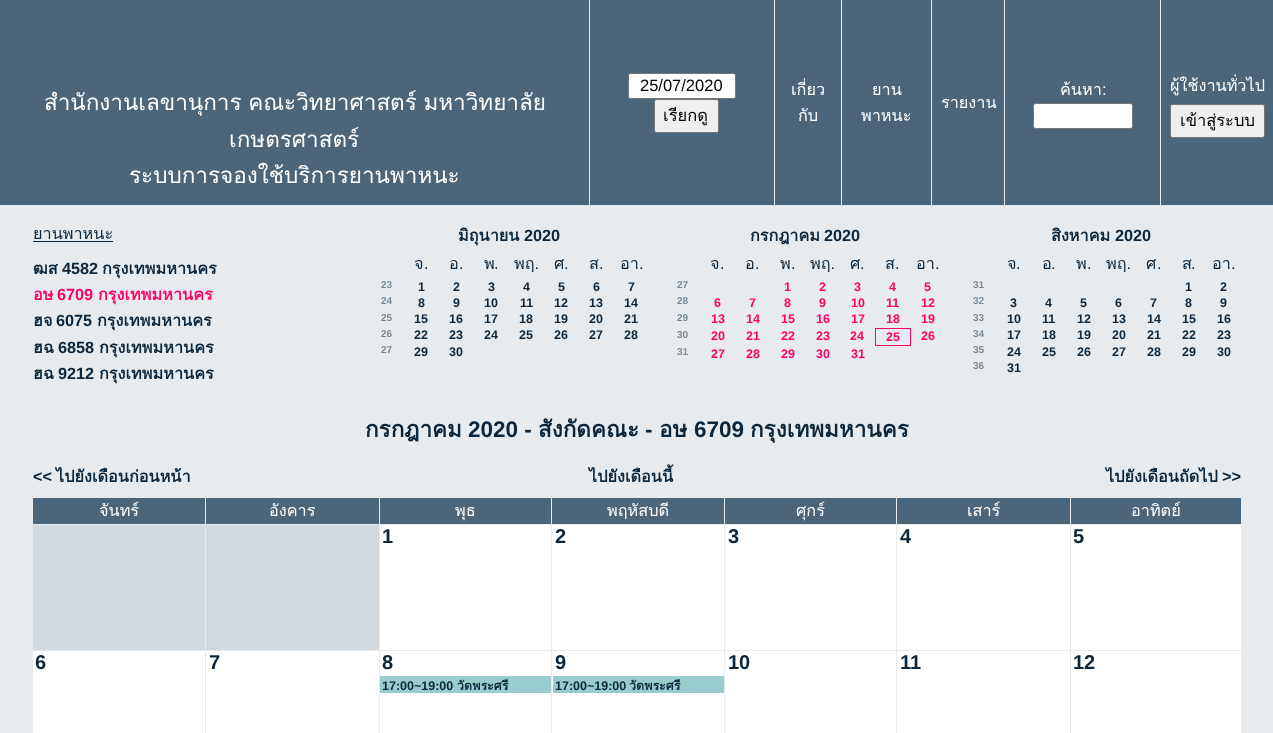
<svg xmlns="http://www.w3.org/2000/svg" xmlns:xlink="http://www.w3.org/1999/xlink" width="1273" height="733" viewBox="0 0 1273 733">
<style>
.cls-1{font:22.5px Loma;fill:#ffffff}
.cls-2{font:16.5px Liberation Sans;fill:#000000}
.cls-3{font:16.5px Loma;fill:#000000}
.cls-4{font:16.25px Loma;fill:#ffffff}
.cls-5{font:16.25px Liberation Sans;fill:#ffffff}
.cls-6{font:16.25px Loma;fill:#0b263b}
.cls-7{font:bold 16.25px Loma;fill:#0b263b}
.cls-8{font:bold 16.25px Liberation Sans;fill:#0b263b}
.cls-9{font:bold 16.25px Loma;fill:#ff0066}
.cls-10{font:bold 16.25px Liberation Sans;fill:#ff0066}
.cls-11{font:16.25px Liberation Sans;fill:#0b263b}
.cls-12{font:bold 10px Liberation Sans;fill:#798995}
.cls-13{font:bold 12.5px Liberation Sans;fill:#0b263b}
.cls-14{font:bold 12.5px Liberation Sans;fill:#ff0066}
.cls-15{font:bold 22.5px Loma;fill:#0b263b}
.cls-16{font:bold 22.5px Liberation Sans;fill:#0b263b}
.cls-17{font:bold 20px Liberation Sans;fill:#0b263b}
.cls-18{font:bold 12.5px Loma;fill:#0b263b}
</style>
<rect width="100%" height="100%" fill="#e7ebee"/>
<rect fill="#4b667b" x="0" y="0" width="1273" height="205"/>
<rect fill="#e7ebee" x="589" y="0" width="1" height="205"/>
<rect fill="#ffffff" stroke="#767676" x="628.5" y="73.5" width="107" height="25" rx="2"/>
<rect fill="#efefef" stroke="#767676" x="654.5" y="99.5" width="64" height="33" rx="2"/>
<rect fill="#e7ebee" x="774" y="0" width="1" height="205"/>
<rect fill="#e7ebee" x="841" y="0" width="1" height="205"/>
<rect fill="#e7ebee" x="931" y="0" width="1" height="205"/>
<rect fill="#e7ebee" x="1004" y="0" width="1" height="205"/>
<rect fill="#ffffff" stroke="#767676" x="1033.5" y="103.5" width="99" height="25" rx="2"/>
<rect fill="#e7ebee" x="1160" y="0" width="1" height="205"/>
<rect fill="#efefef" stroke="#767676" x="1170.5" y="104.5" width="94" height="33" rx="2"/>
<rect fill="#0b263b" x="33" y="241" width="80" height="1"/>
<rect fill="#ff0066" x="875" y="328" width="36" height="1"/>
<rect fill="#ff0066" x="910" y="328" width="1" height="18"/>
<rect fill="#ff0066" x="875" y="345" width="36" height="1"/>
<rect fill="#ff0066" x="875" y="328" width="1" height="18"/>
<rect fill="#4b667b" x="33" y="498" width="172" height="26"/>
<rect fill="#4b667b" x="206" y="498" width="173" height="26"/>
<rect fill="#4b667b" x="380" y="498" width="171" height="26"/>
<rect fill="#4b667b" x="552" y="498" width="172" height="26"/>
<rect fill="#4b667b" x="725" y="498" width="171" height="26"/>
<rect fill="#4b667b" x="897" y="498" width="173" height="26"/>
<rect fill="#4b667b" x="1071" y="498" width="170" height="26"/>
<rect fill="#d1d9de" x="33" y="525" width="172" height="125"/>
<rect fill="#d1d9de" x="206" y="525" width="173" height="125"/>
<rect fill="#ffffff" x="380" y="525" width="171" height="125"/>
<rect fill="#ffffff" x="552" y="525" width="172" height="125"/>
<rect fill="#ffffff" x="725" y="525" width="171" height="125"/>
<rect fill="#ffffff" x="897" y="525" width="173" height="125"/>
<rect fill="#ffffff" x="1071" y="525" width="170" height="125"/>
<rect fill="#ffffff" x="33" y="651" width="172" height="82"/>
<rect fill="#ffffff" x="206" y="651" width="173" height="82"/>
<rect fill="#ffffff" x="380" y="651" width="171" height="82"/>
<rect fill="#99cccc" x="380" y="676" width="171" height="17"/>
<rect fill="#ffffff" x="552" y="651" width="172" height="82"/>
<rect fill="#99cccc" x="553" y="676" width="171" height="17"/>
<rect fill="#ffffff" x="725" y="651" width="171" height="82"/>
<rect fill="#ffffff" x="897" y="651" width="173" height="82"/>
<rect fill="#ffffff" x="1071" y="651" width="170" height="82"/>
<text class="cls-1" x="44" y="110" word-spacing="-1">สำนักงานเลขานุการ คณะวิทยาศาสตร์ มหาวิทยาลัย</text>
<text class="cls-1" x="229" y="147">เกษตรศาสตร์</text>
<text class="cls-1" x="129" y="183">ระบบการจองใช้บริการยานพาหนะ</text>
<text class="cls-2" x="640" y="91">25/07/2020</text>
<text class="cls-3" x="663" y="121">เรียกดู</text>
<text class="cls-4" x="791" y="95">เกี่ยว</text>
<text class="cls-4" x="798" y="121">กับ</text>
<text class="cls-4" x="872" y="95">ยาน</text>
<text class="cls-4" x="861" y="121">พาหนะ</text>
<text class="cls-4" x="941" y="108">รายงาน</text>
<text class="cls-4" x="1060" y="95">ค้นหา</text>
<text class="cls-5" x="1102" y="95">:</text>
<text class="cls-4" x="1170" y="91">ผู้ใช้งานทั่วไป</text>
<text class="cls-3" x="1180" y="126">เข้าสู่ระบบ</text>
<text class="cls-6" x="33" y="239">ยานพาหนะ</text>
<text class="cls-7" x="33" y="274">ฒส</text>
<text class="cls-8" x="62" y="274">4582</text>
<text class="cls-7" x="102" y="274">กรุงเทพมหานคร</text>
<text class="cls-9" x="33" y="300">อษ</text>
<text class="cls-10" x="57" y="300">6709</text>
<text class="cls-9" x="98" y="300">กรุงเทพมหานคร</text>
<text class="cls-7" x="33" y="326">ฮจ</text>
<text class="cls-8" x="56" y="326">6075</text>
<text class="cls-7" x="97" y="326">กรุงเทพมหานคร</text>
<text class="cls-7" x="33" y="353">ฮฉ</text>
<text class="cls-8" x="58" y="353">6858</text>
<text class="cls-7" x="99" y="353">กรุงเทพมหานคร</text>
<text class="cls-7" x="33" y="379">ฮฉ</text>
<text class="cls-8" x="58" y="379">9212</text>
<text class="cls-7" x="99" y="379">กรุงเทพมหานคร</text>
<text class="cls-7" x="458" y="241">มิถุนายน</text>
<text class="cls-8" x="524" y="241">2020</text>
<text class="cls-6" x="414" y="269">จ</text>
<text class="cls-11" x="424" y="269">.</text>
<text class="cls-6" x="449" y="269">อ</text>
<text class="cls-11" x="459" y="269">.</text>
<text class="cls-6" x="484" y="269">พ</text>
<text class="cls-11" x="494" y="269">.</text>
<text class="cls-6" x="514" y="269">พฤ.</text>
<text class="cls-6" x="554" y="269">ศ</text>
<text class="cls-11" x="564" y="269">.</text>
<text class="cls-6" x="589" y="269">ส</text>
<text class="cls-11" x="599" y="269">.</text>
<text class="cls-6" x="620" y="269">อา.</text>
<text class="cls-12" x="381" y="288">23</text>
<text class="cls-13" x="418" y="291">1</text>
<text class="cls-13" x="453" y="291">2</text>
<text class="cls-13" x="488" y="291">3</text>
<text class="cls-13" x="523" y="291">4</text>
<text class="cls-13" x="558" y="291">5</text>
<text class="cls-13" x="593" y="291">6</text>
<text class="cls-13" x="628" y="291">7</text>
<text class="cls-12" x="381" y="304">24</text>
<text class="cls-13" x="418" y="307">8</text>
<text class="cls-13" x="453" y="307">9</text>
<text class="cls-13" x="484" y="307">10</text>
<text class="cls-13" x="520" y="307">11</text>
<text class="cls-13" x="554" y="307">12</text>
<text class="cls-13" x="589" y="307">13</text>
<text class="cls-13" x="624" y="307">14</text>
<text class="cls-12" x="381" y="321">25</text>
<text class="cls-13" x="414" y="323">15</text>
<text class="cls-13" x="449" y="323">16</text>
<text class="cls-13" x="484" y="323">17</text>
<text class="cls-13" x="519" y="323">18</text>
<text class="cls-13" x="554" y="323">19</text>
<text class="cls-13" x="589" y="323">20</text>
<text class="cls-13" x="624" y="323">21</text>
<text class="cls-12" x="381" y="337">26</text>
<text class="cls-13" x="414" y="339">22</text>
<text class="cls-13" x="449" y="339">23</text>
<text class="cls-13" x="484" y="339">24</text>
<text class="cls-13" x="519" y="339">25</text>
<text class="cls-13" x="554" y="339">26</text>
<text class="cls-13" x="589" y="339">27</text>
<text class="cls-13" x="624" y="339">28</text>
<text class="cls-12" x="381" y="353">27</text>
<text class="cls-13" x="414" y="356">29</text>
<text class="cls-13" x="449" y="356">30</text>
<text class="cls-7" x="750" y="241">กรกฎาคม</text>
<text class="cls-8" x="824" y="241">2020</text>
<text class="cls-6" x="710" y="269">จ</text>
<text class="cls-11" x="720" y="269">.</text>
<text class="cls-6" x="745" y="269">อ</text>
<text class="cls-11" x="755" y="269">.</text>
<text class="cls-6" x="780" y="269">พ</text>
<text class="cls-11" x="791" y="269">.</text>
<text class="cls-6" x="810" y="269">พฤ.</text>
<text class="cls-6" x="850" y="269">ศ</text>
<text class="cls-11" x="860" y="269">.</text>
<text class="cls-6" x="885" y="269">ส</text>
<text class="cls-11" x="895" y="269">.</text>
<text class="cls-6" x="916" y="269">อา.</text>
<text class="cls-12" x="677" y="288">27</text>
<text class="cls-14" x="784" y="291">1</text>
<text class="cls-14" x="819" y="291">2</text>
<text class="cls-14" x="854" y="291">3</text>
<text class="cls-14" x="889" y="291">4</text>
<text class="cls-14" x="924" y="291">5</text>
<text class="cls-12" x="677" y="304">28</text>
<text class="cls-14" x="714" y="307">6</text>
<text class="cls-14" x="749" y="307">7</text>
<text class="cls-14" x="784" y="307">8</text>
<text class="cls-14" x="819" y="307">9</text>
<text class="cls-14" x="851" y="307">10</text>
<text class="cls-14" x="886" y="307">11</text>
<text class="cls-14" x="921" y="307">12</text>
<text class="cls-12" x="677" y="321">29</text>
<text class="cls-14" x="711" y="323">13</text>
<text class="cls-14" x="746" y="323">14</text>
<text class="cls-14" x="781" y="323">15</text>
<text class="cls-14" x="816" y="323">16</text>
<text class="cls-14" x="851" y="323">17</text>
<text class="cls-14" x="886" y="323">18</text>
<text class="cls-14" x="921" y="323">19</text>
<text class="cls-12" x="677" y="338">30</text>
<text class="cls-14" x="711" y="340">20</text>
<text class="cls-14" x="746" y="340">21</text>
<text class="cls-14" x="781" y="340">22</text>
<text class="cls-14" x="816" y="340">23</text>
<text class="cls-14" x="850" y="340">24</text>
<text class="cls-14" x="886" y="341">25</text>
<text class="cls-14" x="921" y="340">26</text>
<text class="cls-12" x="677" y="355">31</text>
<text class="cls-14" x="711" y="358">27</text>
<text class="cls-14" x="746" y="358">28</text>
<text class="cls-14" x="781" y="358">29</text>
<text class="cls-14" x="816" y="358">30</text>
<text class="cls-14" x="851" y="358">31</text>
<text class="cls-7" x="1051" y="241">สิงหาคม</text>
<text class="cls-8" x="1115" y="241">2020</text>
<text class="cls-6" x="1007" y="269">จ</text>
<text class="cls-11" x="1016" y="269">.</text>
<text class="cls-6" x="1042" y="269">อ</text>
<text class="cls-11" x="1051" y="269">.</text>
<text class="cls-6" x="1076" y="269">พ</text>
<text class="cls-11" x="1087" y="269">.</text>
<text class="cls-6" x="1106" y="269">พฤ.</text>
<text class="cls-6" x="1146" y="269">ศ</text>
<text class="cls-11" x="1157" y="269">.</text>
<text class="cls-6" x="1182" y="269">ส</text>
<text class="cls-11" x="1191" y="269">.</text>
<text class="cls-6" x="1212" y="269">อา.</text>
<text class="cls-12" x="973" y="288">31</text>
<text class="cls-13" x="1185" y="291">1</text>
<text class="cls-13" x="1220" y="291">2</text>
<text class="cls-12" x="973" y="304">32</text>
<text class="cls-13" x="1010" y="307">3</text>
<text class="cls-13" x="1045" y="307">4</text>
<text class="cls-13" x="1080" y="307">5</text>
<text class="cls-13" x="1115" y="307">6</text>
<text class="cls-13" x="1150" y="307">7</text>
<text class="cls-13" x="1185" y="307">8</text>
<text class="cls-13" x="1220" y="307">9</text>
<text class="cls-12" x="973" y="321">33</text>
<text class="cls-13" x="1007" y="323">10</text>
<text class="cls-13" x="1042" y="323">11</text>
<text class="cls-13" x="1077" y="323">12</text>
<text class="cls-13" x="1112" y="323">13</text>
<text class="cls-13" x="1147" y="323">14</text>
<text class="cls-13" x="1182" y="323">15</text>
<text class="cls-13" x="1217" y="323">16</text>
<text class="cls-12" x="973" y="337">34</text>
<text class="cls-13" x="1007" y="339">17</text>
<text class="cls-13" x="1042" y="339">18</text>
<text class="cls-13" x="1077" y="339">19</text>
<text class="cls-13" x="1112" y="339">20</text>
<text class="cls-13" x="1147" y="339">21</text>
<text class="cls-13" x="1182" y="339">22</text>
<text class="cls-13" x="1217" y="339">23</text>
<text class="cls-12" x="973" y="353">35</text>
<text class="cls-13" x="1007" y="356">24</text>
<text class="cls-13" x="1042" y="356">25</text>
<text class="cls-13" x="1077" y="356">26</text>
<text class="cls-13" x="1112" y="356">27</text>
<text class="cls-13" x="1147" y="356">28</text>
<text class="cls-13" x="1182" y="356">29</text>
<text class="cls-13" x="1217" y="356">30</text>
<text class="cls-12" x="973" y="369">36</text>
<text class="cls-13" x="1007" y="372">31</text>
<text class="cls-15" x="365" y="437">กรกฎาคม</text>
<text class="cls-16" x="468" y="437">2020 -</text>
<text class="cls-15" x="538" y="437">สังกัดคณะ</text>
<text class="cls-16" x="645" y="437">-</text>
<text class="cls-15" x="659" y="437">อษ</text>
<text class="cls-16" x="694" y="437">6709</text>
<text class="cls-15" x="750" y="437">กรุงเทพมหานคร</text>
<text class="cls-8" x="33" y="482">&lt;&lt;</text>
<text class="cls-7" x="56" y="482">ไปยังเดือนก่อนหน้า</text>
<text class="cls-7" x="589" y="482">ไปยังเดือนนี้</text>
<text class="cls-7" x="1106" y="482">ไปยังเดือนถัดไป</text>
<text class="cls-8" x="1222" y="482">&gt;&gt;</text>
<text class="cls-4" x="99" y="516">จันทร์</text>
<text class="cls-4" x="269" y="516">อังคาร</text>
<text class="cls-4" x="455" y="516">พุธ</text>
<text class="cls-4" x="607" y="516">พฤหัสบดี</text>
<text class="cls-4" x="796" y="516">ศุกร์</text>
<text class="cls-4" x="967" y="516">เสาร์</text>
<text class="cls-4" x="1131" y="516">อาทิตย์</text>
<text class="cls-17" x="382" y="543">1</text>
<text class="cls-17" x="555" y="543">2</text>
<text class="cls-17" x="728" y="543">3</text>
<text class="cls-17" x="900" y="543">4</text>
<text class="cls-17" x="1073" y="543">5</text>
<text class="cls-17" x="35" y="669">6</text>
<text class="cls-17" x="209" y="669">7</text>
<text class="cls-17" x="382" y="669">8</text>
<text class="cls-13" x="382" y="690">17:00~19:00</text>
<text class="cls-18" x="457" y="690">วัดพระศรี</text>
<text class="cls-17" x="555" y="669">9</text>
<text class="cls-13" x="555" y="690">17:00~19:00</text>
<text class="cls-18" x="629" y="690">วัดพระศรี</text>
<text class="cls-17" x="728" y="669">10</text>
<text class="cls-17" x="900" y="669">11</text>
<text class="cls-17" x="1073" y="669">12</text>
</svg>
